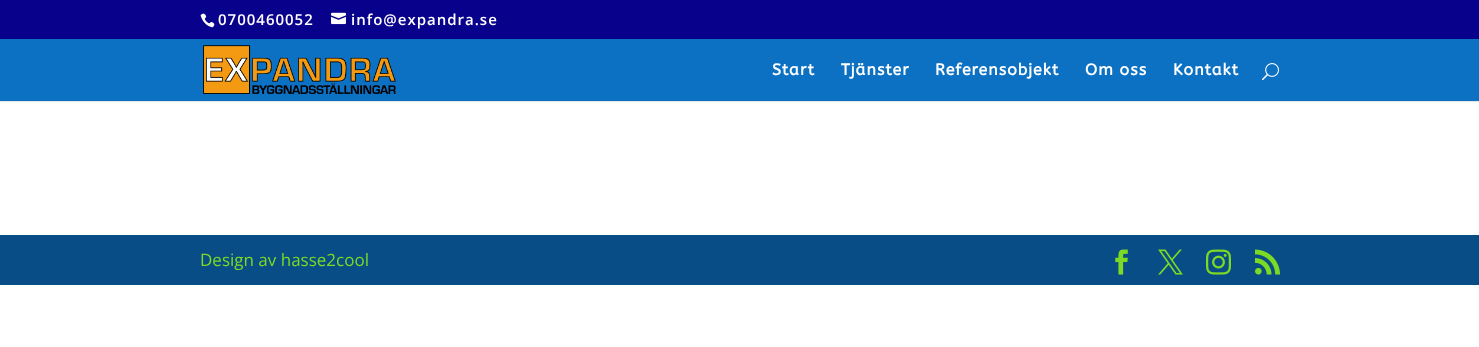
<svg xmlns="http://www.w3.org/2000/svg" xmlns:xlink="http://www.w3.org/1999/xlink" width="1479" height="347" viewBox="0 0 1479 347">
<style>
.cls-1{font:600 15px Open Sans;letter-spacing:1px;fill:#ffffff}
.cls-2{font:bold 16px ABeeZee;letter-spacing:1px;fill:#ffffff}
.cls-3{font:17px Open Sans;fill:#7cda24}
</style>
<rect width="100%" height="100%" fill="#ffffff"/>
<rect fill="#08018c" x="0" y="0" width="1479" height="39"/>
<image xlink:href="image0.png" x="200" y="13" width="15" height="15"/>
<image xlink:href="image1.png" x="331" y="12" width="15" height="13"/>
<rect fill="#e6e6e6" x="0" y="101" width="1479" height="1"/>
<rect fill="#0c71c3" x="0" y="39" width="1479" height="62"/>
<image xlink:href="image2.png" x="203" y="45" width="193" height="49"/>
<image xlink:href="image3.png" x="1262" y="63" width="17" height="18"/>
<rect fill="#084d85" x="0" y="235" width="1479" height="50"/>
<image xlink:href="image4.png" x="1115" y="249" width="13" height="26"/>
<image xlink:href="image5.png" x="1158" y="249" width="25" height="26"/>
<image xlink:href="image6.png" x="1206" y="249" width="25" height="26"/>
<image xlink:href="image7.png" x="1255" y="249" width="25" height="26"/>
<text class="cls-1" x="218" y="25">0700460052</text>
<text class="cls-1" x="351" y="25">info@expandra.se</text>
<text class="cls-2" x="772" y="75">Start</text>
<text class="cls-2" x="841" y="75">Tjänster</text>
<text class="cls-2" x="935" y="75">Referensobjekt</text>
<text class="cls-2" x="1085" y="75">Om oss</text>
<text class="cls-2" x="1173" y="75">Kontakt</text>
<text class="cls-3" x="200" y="266">Design av hasse2cool</text>
</svg>
